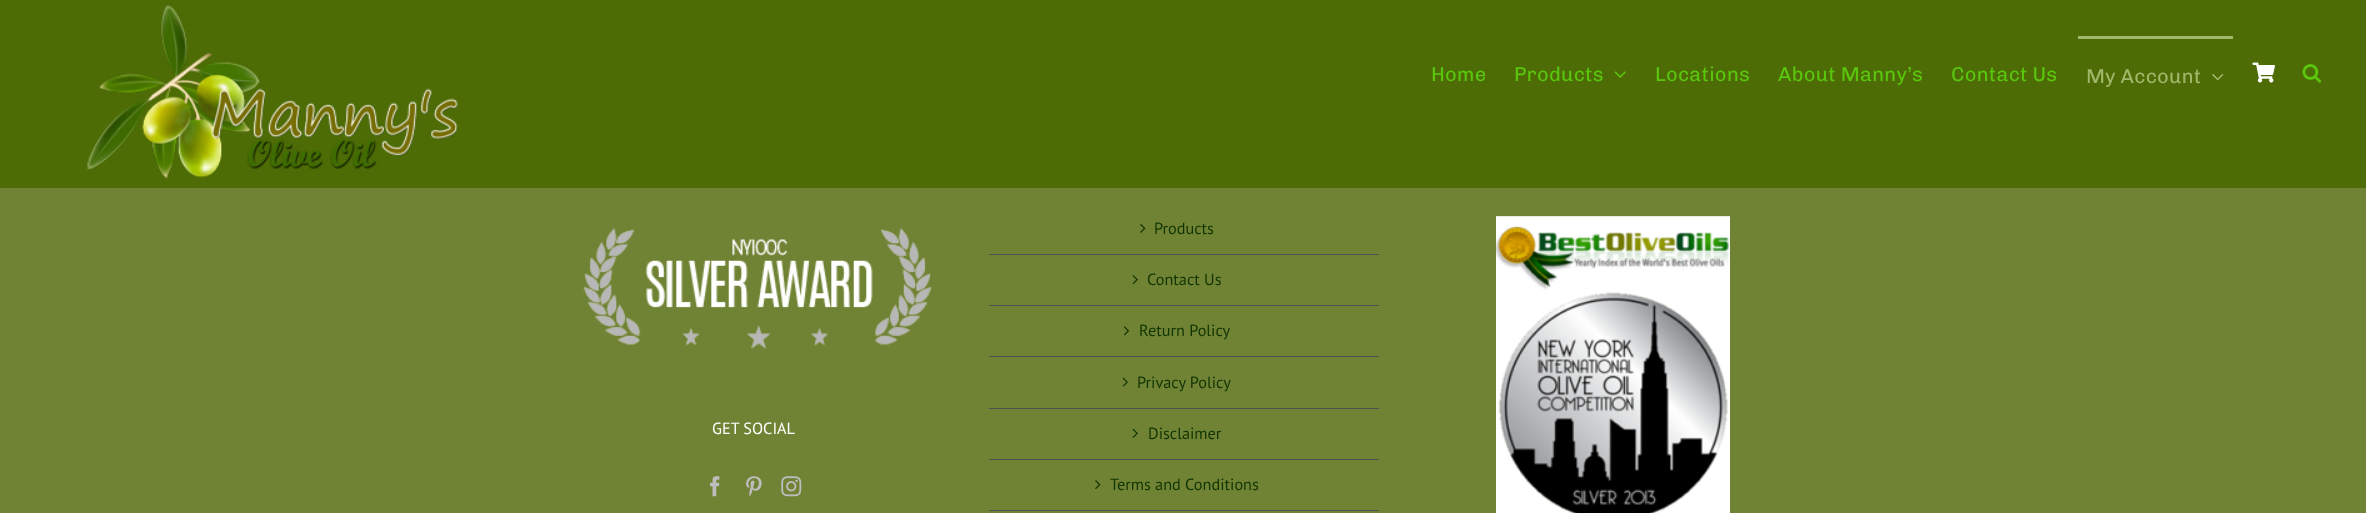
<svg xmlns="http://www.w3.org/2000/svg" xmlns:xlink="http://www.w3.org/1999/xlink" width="2366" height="513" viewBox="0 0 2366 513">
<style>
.cls-1{font:500 20px Chivo;letter-spacing:0.25px;fill:#5ac60d}
.cls-2{font:500 20px Chivo;letter-spacing:0.25px;fill:#a1b86b}
.cls-3{font:16.25px PT Sans;fill:#ffffff}
.cls-4{font:16.25px PT Sans;fill:#113500}
</style>
<rect width="100%" height="100%" fill="#708335"/>
<rect fill="#4d6c06" x="0" y="0" width="2366" height="188"/>
<image xlink:href="image0.png" x="86" y="4" width="372" height="175"/>
<image xlink:href="image1.png" x="1614" y="71" width="12" height="7"/>
<rect fill="#a1b86b" x="2078" y="36" width="155" height="3"/>
<image xlink:href="image2.png" x="2212" y="74" width="12" height="7"/>
<image xlink:href="image3.png" x="2252" y="62" width="23" height="21"/>
<image xlink:href="image4.png" x="2302" y="64" width="19" height="19"/>
<image xlink:href="image5.png" x="583" y="228" width="349" height="121"/>
<image xlink:href="image6.png" x="710" y="476" width="10" height="21"/>
<image xlink:href="image7.png" x="746" y="476" width="16" height="21"/>
<image xlink:href="image8.png" x="781" y="476" width="21" height="21"/>
<rect fill="#505152" x="989" y="254" width="390" height="1"/>
<image xlink:href="image9.png" x="1140" y="224" width="6" height="9"/>
<rect fill="#505152" x="989" y="305" width="390" height="1"/>
<image xlink:href="image10.png" x="1132" y="275" width="6" height="10"/>
<rect fill="#505152" x="989" y="356" width="390" height="1"/>
<image xlink:href="image11.png" x="1124" y="326" width="5" height="10"/>
<rect fill="#505152" x="989" y="408" width="390" height="1"/>
<image xlink:href="image12.png" x="1122" y="377" width="6" height="10"/>
<rect fill="#505152" x="989" y="459" width="390" height="1"/>
<image xlink:href="image13.png" x="1132" y="428" width="6" height="10"/>
<rect fill="#505152" x="989" y="510" width="390" height="1"/>
<image xlink:href="image14.png" x="1095" y="480" width="6" height="9"/>
<image xlink:href="image15.png" x="1496" y="216" width="234" height="297"/>
<text class="cls-1" x="1431" y="81">Home</text>
<text class="cls-1" x="1514" y="81">Products</text>
<text class="cls-1" x="1655" y="81">Locations</text>
<text class="cls-1" x="1778" y="81">About Manny’s</text>
<text class="cls-1" x="1951" y="81">Contact Us</text>
<text class="cls-2" x="2086" y="83">My Account</text>
<text class="cls-3" x="712" y="434">GET SOCIAL</text>
<text class="cls-4" x="1154" y="234">Products</text>
<text class="cls-4" x="1147" y="285">Contact Us</text>
<text class="cls-4" x="1139" y="336">Return Policy</text>
<text class="cls-4" x="1137" y="388">Privacy Policy</text>
<text class="cls-4" x="1148" y="439">Disclaimer</text>
<text class="cls-4" x="1110" y="490">Terms and Conditions</text>
</svg>
